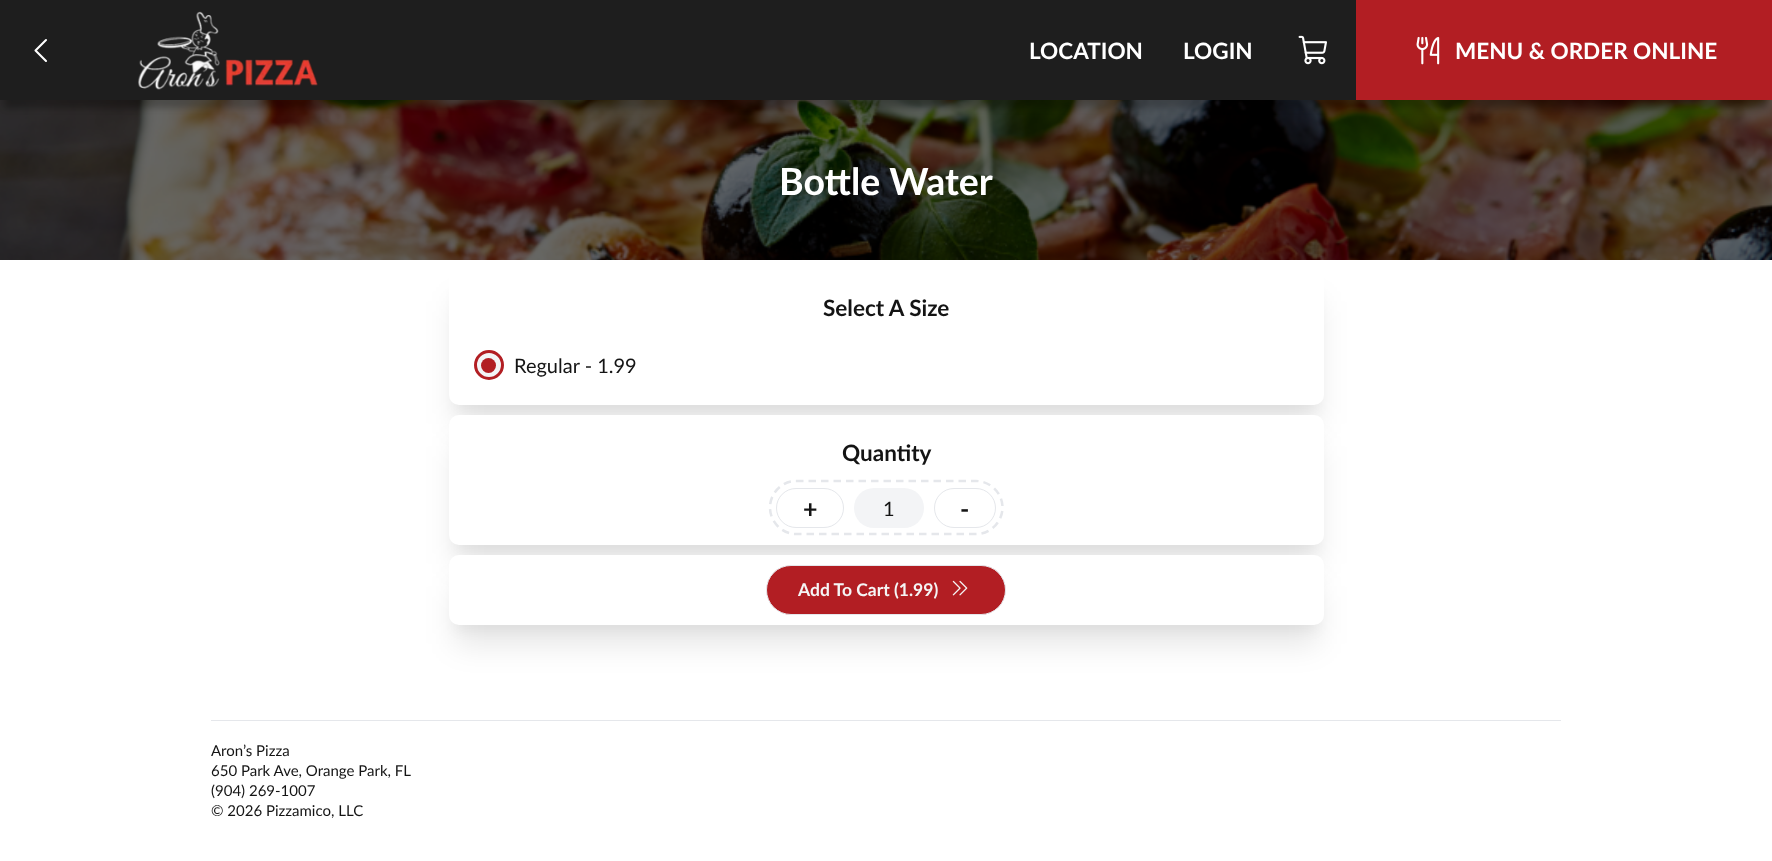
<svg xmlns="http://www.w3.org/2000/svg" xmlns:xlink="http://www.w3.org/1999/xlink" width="1772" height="861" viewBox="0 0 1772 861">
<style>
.cls-1{font:bold 22.5px Lato;fill:#ffffff}
.cls-2{font:bold 37.5px Lato;fill:#ffffff}
.cls-3{font:bold 22.5px Lato;fill:#141414}
.cls-4{font:20px Lato;fill:#141414}
.cls-5{font:bold 25px Lato;fill:#141414}
.cls-6{font:bold 17.5px Lato;fill:#f5f5f5}
.cls-7{font:15px Lato;fill:#141414}
</style>
<rect width="100%" height="100%" fill="#ffffff"/>
<rect fill="#000000" fill-opacity="0.1" filter="blur(15.5px)" x="455" y="301" width="863" height="123" rx="4"/>
<image xlink:href="image3.png" x="0" y="100" width="1772" height="160"/>
<rect fill="#000000" fill-opacity="0.25" filter="blur(3px)" x="5" y="18" width="1763" height="90"/>
<rect fill="#1e1e1e" x="0" y="0" width="1356" height="100"/>
<path fill="none" stroke="#ffffff" stroke-width="2.1" stroke-linecap="round" stroke-linejoin="round" d="M46 61L35.5 50.5L46 40"/>
<image xlink:href="image0.png" x="138" y="11" width="180" height="79"/>
<image xlink:href="image1.png" x="1298" y="35" width="29" height="30"/>
<rect fill="#b21e23" x="1356" y="0" width="416" height="100"/>
<image xlink:href="image2.png" x="1416" y="36" width="24" height="29"/>
<rect fill="#000000" fill-opacity="0.04" filter="blur(6px)" x="455" y="289" width="863" height="122" rx="4"/>
<rect fill="#ffffff" x="449" y="270" width="875" height="135" rx="10"/>
<circle fill="#f3f4f6" stroke="#b21e23" stroke-width="3" cx="489" cy="365" r="13.5"/>
<circle fill="#b21e23" cx="488.5" cy="365.5" r="7.5"/>
<rect fill="#000000" fill-opacity="0.04" filter="blur(6px)" x="455" y="434" width="863" height="117" rx="4"/>
<rect fill="#000000" fill-opacity="0.1" filter="blur(15.5px)" x="455" y="446" width="863" height="118" rx="4"/>
<rect fill="#ffffff" x="449" y="415" width="875" height="130" rx="10"/>
<path fill="none" stroke="#e5e7eb" stroke-width="2.5" stroke-dasharray="7.5 5" d="M796 481H976C990.5 481 1002.5 493 1002.5 507.5C1002.5 522 990.5 534 976 534H796C782 534 770 522 770 507.5C770 493 782 481 796 481Z"/>
<rect fill="none" stroke="#e5e7eb" x="776.5" y="488.5" width="67" height="39" rx="19.5"/>
<rect fill="#f3f4f6" x="854" y="488" width="70" height="40" rx="20"/>
<rect fill="none" stroke="#e5e7eb" x="934.5" y="488.5" width="61" height="39" rx="19.5"/>
<rect fill="#000000" fill-opacity="0.04" filter="blur(6px)" x="455" y="574" width="863" height="57" rx="4"/>
<rect fill="#000000" fill-opacity="0.1" filter="blur(15.5px)" x="455" y="586" width="863" height="58" rx="4"/>
<rect fill="#ffffff" x="449" y="555" width="875" height="70" rx="10"/>
<rect fill="#b21e23" stroke="#e5e7eb" x="766.5" y="565.5" width="239" height="49" rx="24.5"/>
<image xlink:href="image4.png" x="952" y="580" width="16" height="16"/>
<rect fill="#e5e7eb" x="211" y="720" width="1350" height="1"/>
<text class="cls-1" x="1029" y="59">LOCATION</text>
<text class="cls-1" x="1183" y="59">LOGIN</text>
<text class="cls-1" x="1455" y="59">MENU &amp; ORDER ONLINE</text>
<text class="cls-2" x="779" y="195">Bottle Water</text>
<text class="cls-3" x="823" y="316">Select A Size</text>
<text class="cls-4" x="514" y="373">Regular - 1.99</text>
<text class="cls-3" x="842" y="461">Quantity</text>
<text class="cls-5" x="803" y="518">+</text>
<text class="cls-4" x="883" y="516">1</text>
<text class="cls-5" x="960" y="518">-</text>
<text class="cls-6" x="798" y="596">Add To Cart (1.99)</text>
<text class="cls-7"><tspan x="211" y="756">Aron’s Pizza</tspan><tspan x="211" y="776">650 Park Ave, Orange Park, FL</tspan><tspan x="211" y="796">(904) 269-1007</tspan><tspan x="211" y="816">© 2026 Pizzamico, LLC</tspan></text>
</svg>
